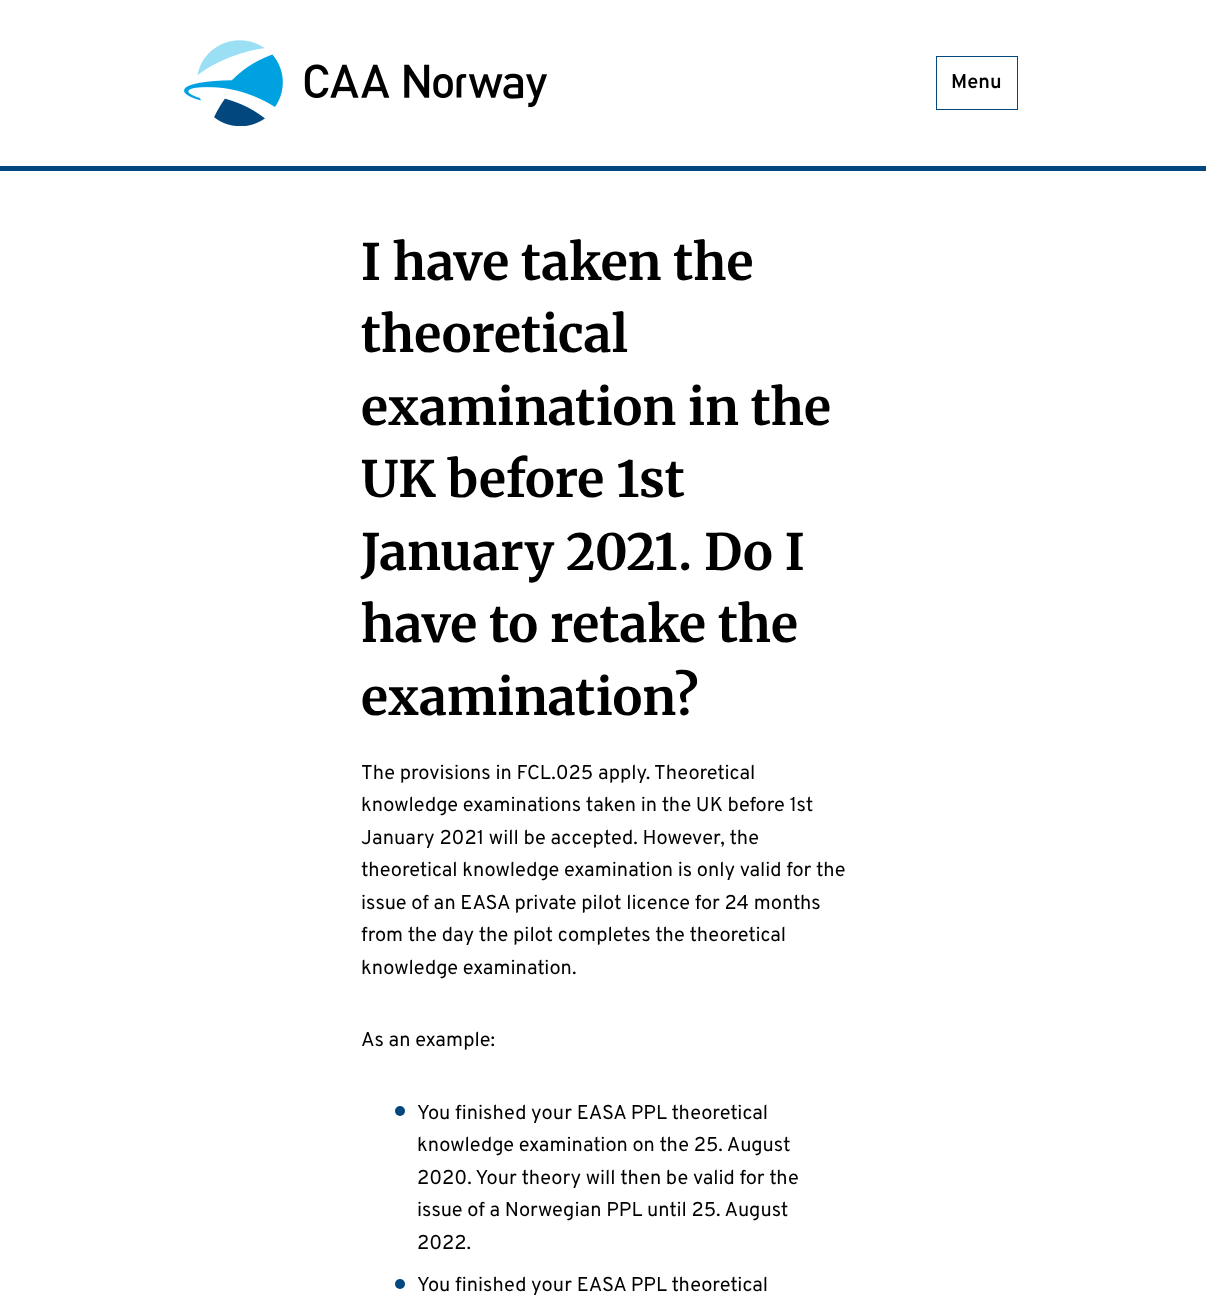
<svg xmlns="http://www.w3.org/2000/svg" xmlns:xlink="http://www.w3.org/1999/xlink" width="1206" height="1299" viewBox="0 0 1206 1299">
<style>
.cls-1{font:600 20px Overpass;fill:#000000}
.cls-2{font:bold 50px Merriweather;fill:#000000}
.cls-3{font:20px Overpass;fill:#000000}
</style>
<rect width="100%" height="100%" fill="#ffffff"/>
<rect fill="#03477f" x="0" y="166" width="1206" height="5"/>
<image xlink:href="image0.png" x="184" y="40" width="363" height="86"/>
<rect fill="none" stroke="#03477f" x="936.5" y="56.5" width="81" height="53"/>
<circle fill="#03477f" cx="400" cy="1111" r="5"/>
<circle fill="#03477f" cx="400" cy="1284" r="5"/>
<text class="cls-1" x="951" y="88">Menu</text>
<text class="cls-2"><tspan x="361" y="280">I have taken the</tspan><tspan x="361" y="352">theoretical</tspan><tspan x="361" y="425">examination in the</tspan><tspan x="361" y="497">UK before 1st</tspan><tspan x="361" y="570">January 2021. Do I</tspan><tspan x="361" y="642">have to retake the</tspan><tspan x="361" y="715">examination?</tspan></text>
<text class="cls-3"><tspan x="361" y="779">The provisions in FCL.025 apply. Theoretical</tspan><tspan x="361" y="811">knowledge examinations taken in the UK before 1st</tspan><tspan x="361" y="844">January 2021 will be accepted. However, the</tspan><tspan x="361" y="876">theoretical knowledge examination is only valid for the</tspan><tspan x="361" y="909">issue of an EASA private pilot licence for 24 months</tspan><tspan x="361" y="941">from the day the pilot completes the theoretical</tspan><tspan x="361" y="974">knowledge examination.</tspan></text>
<text class="cls-3" x="361" y="1046">As an example:</text>
<text class="cls-3"><tspan x="417" y="1119">You finished your EASA PPL theoretical</tspan><tspan x="417" y="1151">knowledge examination on the 25. August</tspan><tspan x="417" y="1184">2020. Your theory will then be valid for the</tspan><tspan x="417" y="1216">issue of a Norwegian PPL until 25. August</tspan><tspan x="417" y="1249">2022.</tspan></text>
<text class="cls-3" x="417" y="1291">You finished your EASA PPL theoretical</text>
</svg>
